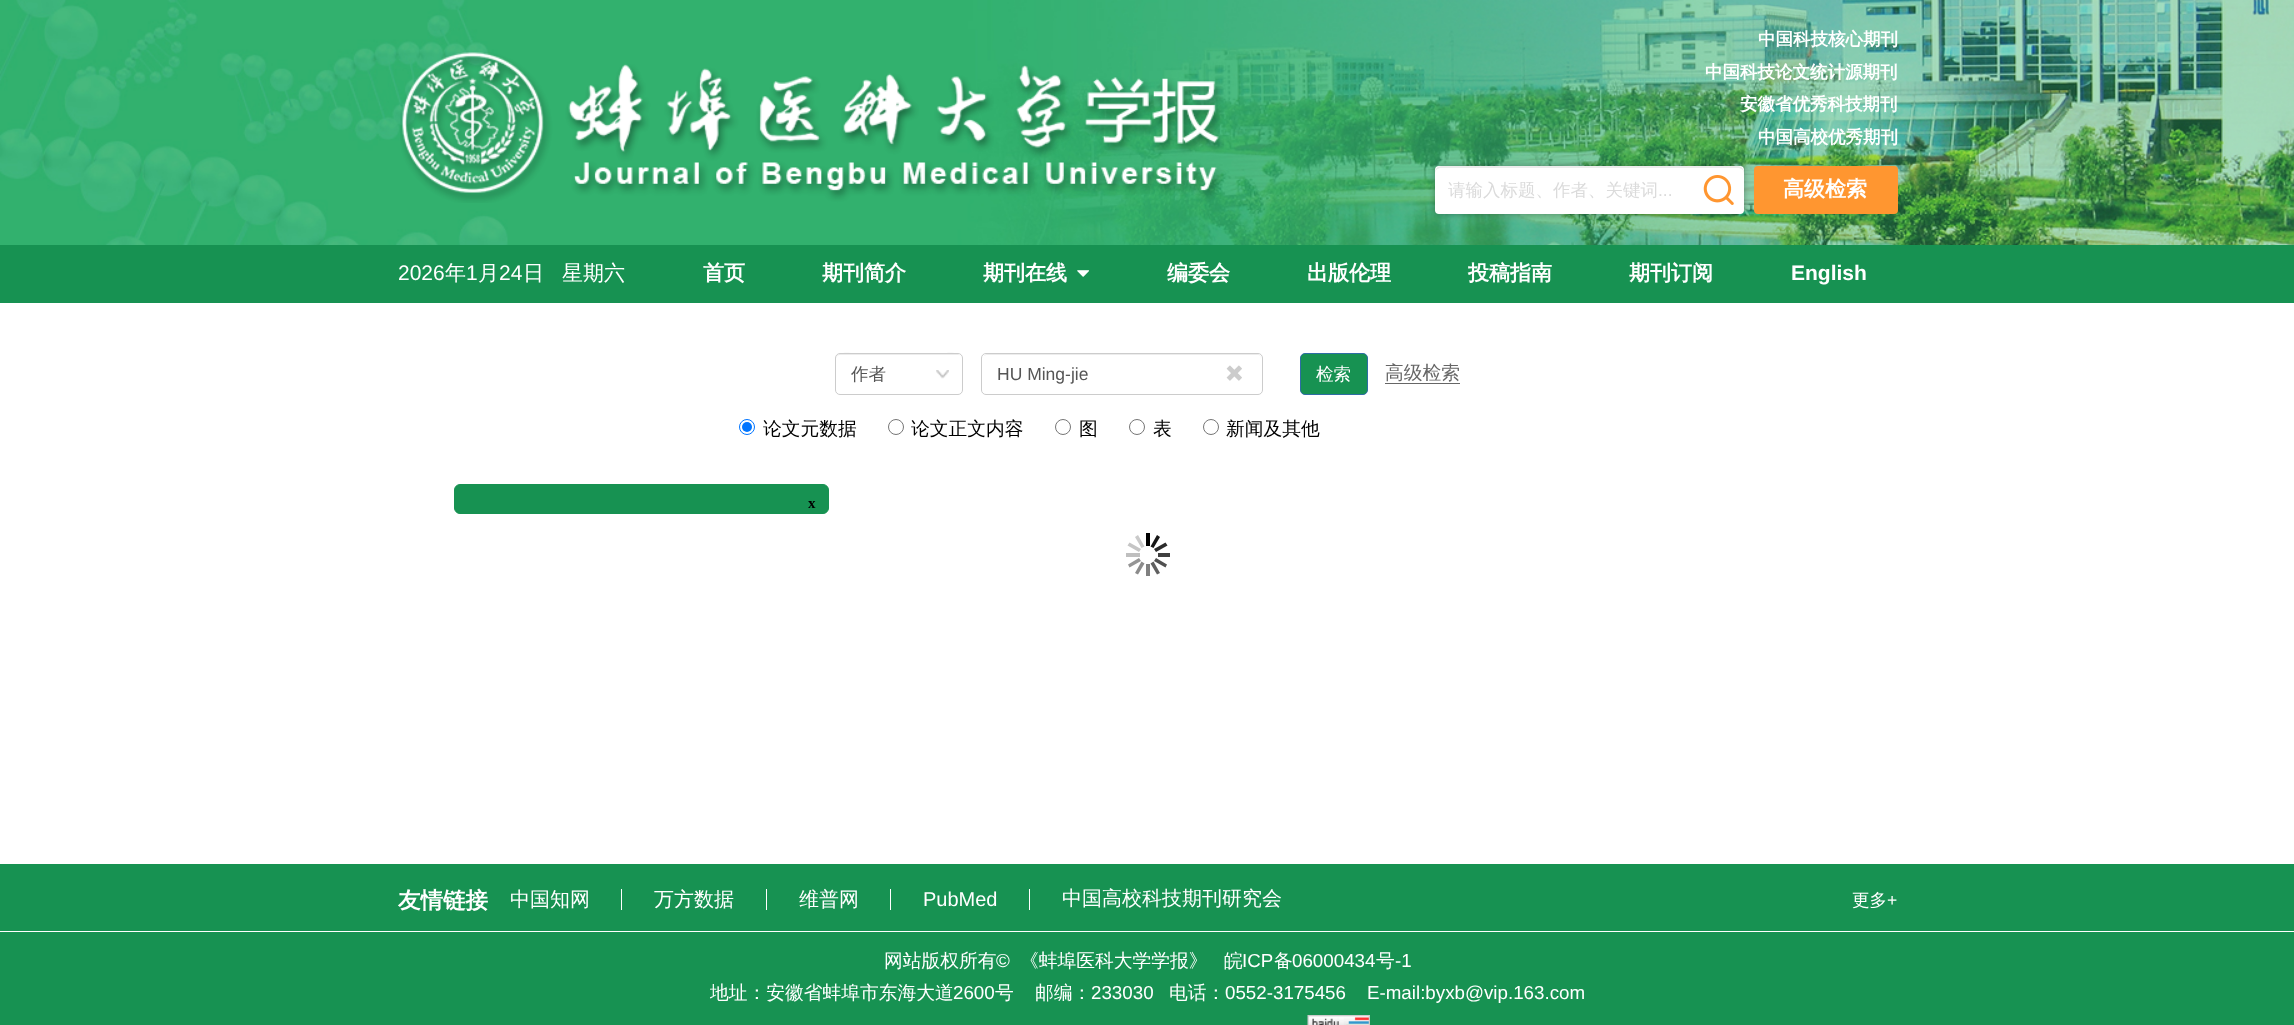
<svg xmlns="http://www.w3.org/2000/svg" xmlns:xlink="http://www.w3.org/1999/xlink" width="2294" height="1025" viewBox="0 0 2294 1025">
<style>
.cls-1{font:bold 17.5px WenQuanYi Zen Hei;fill:#ffffff}
.cls-2{font:500 17.5px WenQuanYi Zen Hei;fill:#dbdbdb}
.cls-3{font:17.5px Liberation Sans;fill:#dbdbdb}
.cls-4{font:bold 21px WenQuanYi Zen Hei;fill:#ffffff}
.cls-5{font:21px Liberation Sans;fill:#ffffff}
.cls-6{font:500 21px WenQuanYi Zen Hei;fill:#ffffff}
.cls-7{font:bold 21px Liberation Sans;fill:#ffffff}
.cls-8{font:500 17.5px WenQuanYi Zen Hei;fill:#555555}
.cls-9{font:17.5px Liberation Sans;fill:#555555}
.cls-10{font:500 17.5px WenQuanYi Zen Hei;fill:#ffffff}
.cls-11{font:500 18.75px WenQuanYi Zen Hei;fill:#666666}
.cls-12{font:500 18.75px WenQuanYi Zen Hei;fill:#000000}
.cls-13{font:bold 15px Liberation Serif;fill:#000000}
.cls-14{font:bold 22.5px WenQuanYi Zen Hei;fill:#ffffff}
.cls-15{font:500 20px WenQuanYi Zen Hei;fill:#ffffff}
.cls-16{font:20px Liberation Sans;fill:#ffffff}
.cls-17{font:17.5px Liberation Sans;fill:#ffffff}
.cls-18{font:500 18.75px WenQuanYi Zen Hei;fill:#ffffff}
.cls-19{font:18.75px Liberation Sans;fill:#ffffff}
</style>
<rect width="100%" height="100%" fill="#ffffff"/>
<image xlink:href="image0.png" x="0" y="0" width="2294" height="245"/>
<image xlink:href="image1.png" x="400" y="52" width="824" height="151"/>
<rect fill="#000000" fill-opacity="0.33" filter="blur(3px)" x="1435" y="166" width="309" height="48" rx="4"/>
<rect fill="#ffffff" x="1435" y="166" width="309" height="48" rx="4"/>
<rect fill="#ffffff" x="1435" y="166" width="309" height="48" rx="6"/>
<path fill="#ececec" d="M1441 168C1438 168 1435 170 1435 174V172C1435 169 1438 166 1441 166H1738C1741 166 1744 169 1744 172V174C1744 170 1741 168 1738 168Z"/>
<image xlink:href="image2.png" x="1703" y="175" width="31" height="30"/>
<rect fill="#ff9630" x="1754" y="166" width="144" height="48" rx="4"/>
<rect fill="#179252" x="0" y="245" width="2294" height="58"/>
<image xlink:href="image3.png" x="1077" y="270" width="13" height="7"/>
<image xlink:href="image4.png" x="936" y="370" width="13" height="9"/>
<path fill="#ececec" d="M840 355H958C960 355 961 357 961 359C961 349 940 354 938 354H860C857 354 836 349 836 359C836 357 838 355 840 355Z"/>
<rect fill="none" stroke="#cccccc" x="835.5" y="353.5" width="127" height="41" rx="4.5"/>
<path fill="#ececec" d="M986 355H1258C1260 355 1261 357 1261 359V358C1261 356 1259 354 1257 354H987C986 354 984 355 984 356Z"/>
<rect fill="none" stroke="#cccccc" x="981.5" y="353.5" width="281" height="41" rx="4.5"/>
<image xlink:href="image5.png" x="1226" y="365" width="16" height="16"/>
<rect fill="#179252" stroke="#2e6da4" x="1300.5" y="353.5" width="67" height="41" rx="4.5"/>
<rect fill="#666666" x="1385" y="383" width="75" height="1"/>
<circle fill="none" stroke="#0075ff" cx="747" cy="427" r="7.5"/>
<circle fill="#0075ff" cx="747" cy="427" r="5"/>
<circle fill="none" stroke="#767676" cx="896" cy="427" r="7.5"/>
<circle fill="none" stroke="#767676" cx="1063" cy="427" r="7.5"/>
<circle fill="none" stroke="#767676" cx="1137" cy="427" r="7.5"/>
<circle fill="none" stroke="#767676" cx="1211" cy="427" r="7.5"/>
<rect fill="#bfbfbf" x="1126" y="553" width="14" height="4"/>
<rect fill="#404040" x="1158" y="553" width="12" height="4"/>
<rect fill="#808080" x="1146" y="564" width="4" height="12"/>
<rect fill="#000000" x="1146" y="533" width="4" height="13"/>
<path fill="#c5c5c5" d="M1129.5 542.5L1141 549L1139 552L1127.5 545.5Z"/>
<path fill="#505050" d="M1156 558L1167 564.5L1165.5 567.5L1154 561Z"/>
<path fill="#8b8b8b" d="M1141.5 561.5L1144.5 563.5L1138 574.5L1135 573Z"/>
<path fill="#161616" d="M1157 535L1160 537L1153.5 548L1150.5 546.5Z"/>
<path fill="#cacaca" d="M1138 535L1144.5 546.5L1141.5 548L1135 537Z"/>
<path fill="#606060" d="M1153.5 561.5L1160 573L1157 574.5L1150.5 563.5Z"/>
<path fill="#959595" d="M1139 558L1141 561L1129.5 567.5L1128 564.5Z"/>
<path fill="#2b2b2b" d="M1165.5 542.5L1167.5 545.5L1156 552L1154 549Z"/>
<rect fill="#179252" stroke="#179252" x="454.5" y="484.5" width="374" height="29" rx="5.5"/>
<rect fill="#179252" x="0" y="864" width="2294" height="161"/>
<rect fill="#ffffff" x="0" y="931" width="2294" height="1"/>
<rect fill="#ffffff" x="621" y="889" width="1" height="21"/>
<rect fill="#ffffff" x="766" y="889" width="1" height="21"/>
<rect fill="#ffffff" x="890" y="889" width="1" height="21"/>
<rect fill="#ffffff" x="1029" y="889" width="1" height="21"/>
<image xlink:href="image6.png" x="1307" y="1015" width="63" height="10"/>
<text class="cls-1" x="1758" y="45">中国科技核心期刊</text>
<text class="cls-1" x="1705" y="78">中国科技论文统计源期刊</text>
<text class="cls-1" x="1740" y="110">安徽省优秀科技期刊</text>
<text class="cls-1" x="1758" y="143">中国高校优秀期刊</text>
<text class="cls-2" x="1448" y="196">请输入标题、作者、关键词</text>
<text class="cls-3" x="1658" y="196">...</text>
<text class="cls-4" x="1783" y="196">高级检索</text>
<text class="cls-5" x="398" y="280">2026</text>
<text class="cls-6" x="445" y="280">年</text>
<text class="cls-5" x="466" y="280">1</text>
<text class="cls-6" x="478" y="280">月</text>
<text class="cls-5" x="499" y="280">24</text>
<text class="cls-6" x="523" y="280">日</text>
<text class="cls-6" x="562" y="280">星期六</text>
<text class="cls-4" x="703" y="280">首页</text>
<text class="cls-4" x="822" y="280">期刊简介</text>
<text class="cls-4" x="983" y="280">期刊在线</text>
<text class="cls-4" x="1167" y="280">编委会</text>
<text class="cls-4" x="1307" y="280">出版伦理</text>
<text class="cls-4" x="1468" y="280">投稿指南</text>
<text class="cls-4" x="1629" y="280">期刊订阅</text>
<text class="cls-7" x="1791" y="280">English</text>
<text class="cls-8" x="851" y="380">作者</text>
<text class="cls-9" x="997" y="380">HU Ming-jie</text>
<text class="cls-10" x="1316" y="380">检索</text>
<text class="cls-11" x="1385" y="379">高级检索</text>
<text class="cls-12" x="763" y="435">论文元数据</text>
<text class="cls-12" x="911" y="435">论文正文内容</text>
<text class="cls-12" x="1079" y="435">图</text>
<text class="cls-12" x="1153" y="435">表</text>
<text class="cls-12" x="1226" y="435">新闻及其他</text>
<text class="cls-13" x="808" y="508">x</text>
<text class="cls-14" x="398" y="908">友情链接</text>
<text class="cls-15" x="510" y="906">中国知网</text>
<text class="cls-15" x="654" y="906">万方数据</text>
<text class="cls-15" x="799" y="906">维普网</text>
<text class="cls-16" x="923" y="906">PubMed</text>
<text class="cls-15" x="1062" y="905">中国高校科技期刊研究会</text>
<text class="cls-10" x="1852" y="906">更多</text>
<text class="cls-17" x="1887" y="906">+</text>
<text class="cls-18" x="884" y="967">网站版权所有</text>
<text class="cls-19" x="996" y="967">©</text>
<text class="cls-18" x="1020" y="967">《蚌埠医科大学学报》</text>
<text class="cls-18" x="1224" y="967">皖</text>
<text class="cls-19" x="1242" y="967">ICP</text>
<text class="cls-18" x="1274" y="967">备</text>
<text class="cls-19" x="1292" y="967">06000434</text>
<text class="cls-18" x="1376" y="967">号</text>
<text class="cls-19" x="1395" y="967">-1</text>
<text class="cls-18" x="710" y="999">地址：安徽省蚌埠市东海大道</text>
<text class="cls-19" x="953" y="999">2600</text>
<text class="cls-18" x="995" y="999">号</text>
<text class="cls-18" x="1035" y="999">邮编：</text>
<text class="cls-19" x="1091" y="999">233030</text>
<text class="cls-18" x="1169" y="999">电话：</text>
<text class="cls-19" x="1225" y="999">0552-3175456</text>
<text class="cls-19" x="1367" y="999">E-mail:byxb@vip.163.com</text>
</svg>
